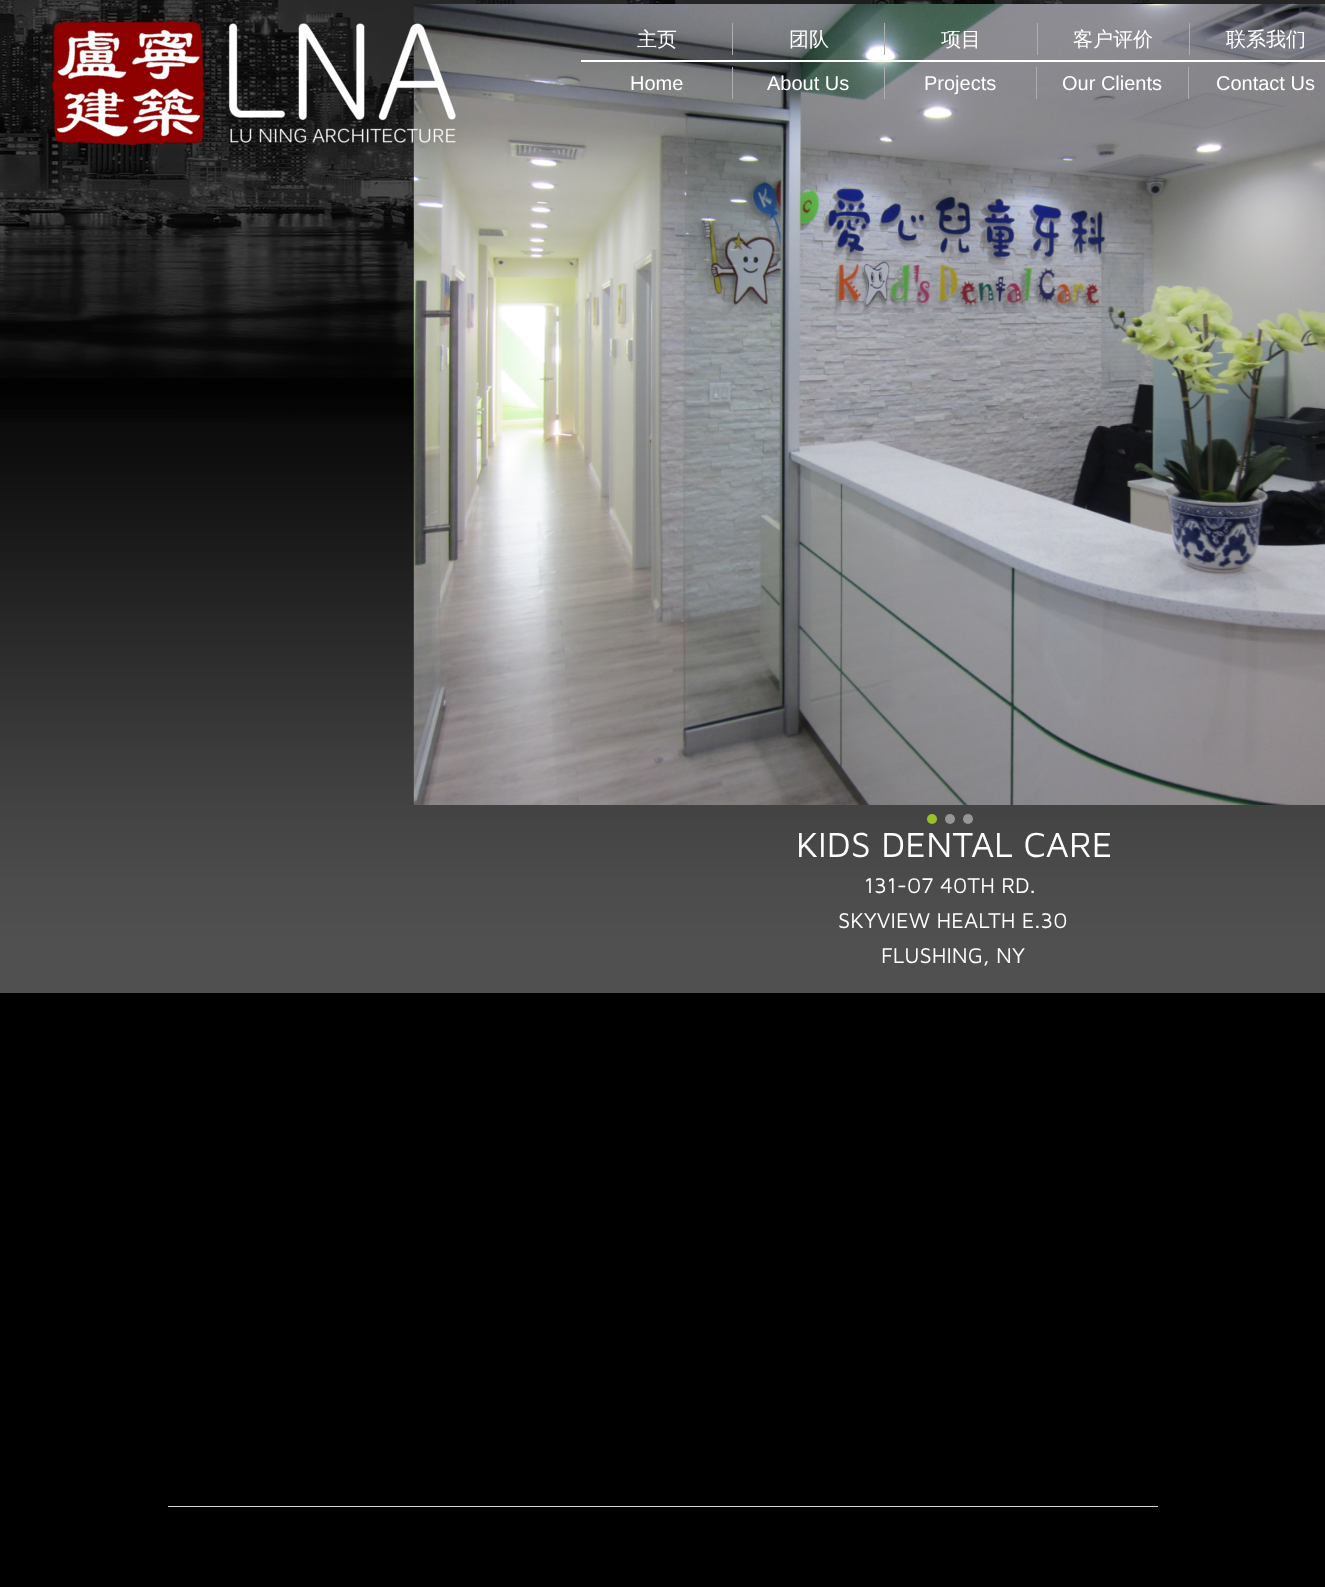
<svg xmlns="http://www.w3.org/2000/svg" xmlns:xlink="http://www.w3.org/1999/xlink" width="1325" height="1587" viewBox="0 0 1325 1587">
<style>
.cls-1{font:500 20px WenQuanYi Zen Hei;fill:#ffffff}
.cls-2{font:20px Liberation Sans;fill:#ffffff}
.cls-3{font:36px Maven Pro;fill:#ffffff}
.cls-4{font:22px Maven Pro;fill:#ffffff}
</style>
<rect width="100%" height="100%" fill="#000000"/>
<image xlink:href="image0.png" x="0" y="0" width="1325" height="993"/>
<image xlink:href="image2.png" x="413" y="4" width="912" height="801"/>
<image xlink:href="image1.png" x="52" y="20" width="404" height="125"/>
<circle fill="#98c22a" cx="932" cy="819" r="5"/>
<circle fill="#969696" cx="950" cy="819" r="5"/>
<circle fill="#969696" cx="968" cy="819" r="5"/>
<rect fill="#aeaeae" x="732" y="23" width="1" height="32"/>
<rect fill="#aeaeae" x="884" y="23" width="1" height="32"/>
<rect fill="#aeaeae" x="1037" y="23" width="1" height="32"/>
<rect fill="#aeaeae" x="1189" y="23" width="1" height="32"/>
<rect fill="#ffffff" x="581" y="60" width="744" height="2"/>
<rect fill="#aeaeae" x="732" y="67" width="1" height="32"/>
<rect fill="#aeaeae" x="884" y="67" width="1" height="32"/>
<rect fill="#aeaeae" x="1036" y="67" width="1" height="32"/>
<rect fill="#aeaeae" x="1188" y="67" width="1" height="32"/>
<rect fill="#d5d5d5" x="168" y="1506" width="990" height="1"/>
<text class="cls-1" x="637" y="46">主页</text>
<text class="cls-1" x="789" y="46">团队</text>
<text class="cls-1" x="941" y="46">项目</text>
<text class="cls-1" x="1073" y="46">客户评价</text>
<text class="cls-1" x="1226" y="46">联系我们</text>
<text class="cls-2" x="630" y="90">Home</text>
<text class="cls-2" x="767" y="90">About Us</text>
<text class="cls-2" x="924" y="90">Projects</text>
<text class="cls-2" x="1062" y="90">Our Clients</text>
<text class="cls-2" x="1216" y="90">Contact Us</text>
<text class="cls-3" x="796" y="857">KIDS DENTAL CARE</text>
<text class="cls-4" x="864" y="893">131-07 40TH RD.</text>
<text class="cls-4" x="838" y="928">SKYVIEW HEALTH E.30</text>
<text class="cls-4" x="881" y="963">FLUSHING, NY</text>
</svg>
